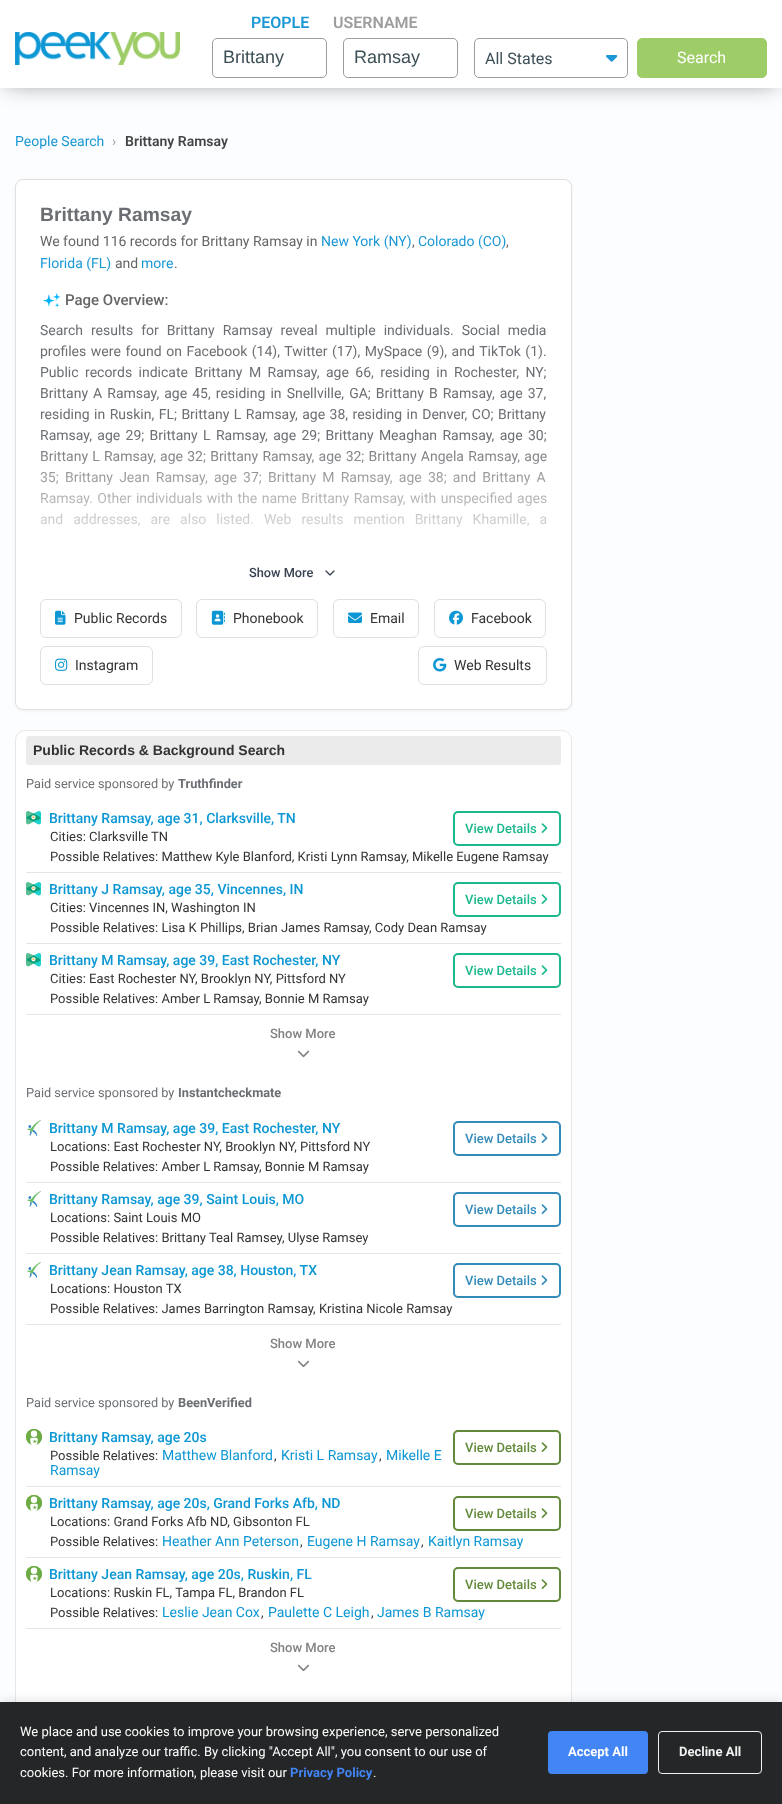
<svg xmlns="http://www.w3.org/2000/svg" xmlns:xlink="http://www.w3.org/1999/xlink" width="782" height="1804" viewBox="0 0 782 1804">
<style>
.cls-1{font:600 16px Roboto;fill:#1a98d5}
.cls-2{font:600 16px Roboto;fill:#9d9d9d}
.cls-3{font:18px Liberation Sans;fill:#3d4f56}
.cls-4{font:16px Roboto;fill:#3d4f56}
.cls-5{font:16px Roboto;fill:#ffffff}
.cls-6{font:14px Roboto;fill:#1a98d5}
.cls-7{font:14px Roboto;fill:#9d9d9d}
.cls-8{font:600 14px Roboto;fill:#454545}
.cls-9{font:bold 19.25px Liberation Sans;fill:#6b6e72}
.cls-10{font:14px Roboto;fill:#666666}
.cls-11{font:500 15px Roboto;fill:#666666}
.cls-12{font:14px Roboto;fill:#6b6e72}
.cls-13{font:500 12.75px Roboto;fill:#374151}
.cls-14{font:14px Roboto;fill:#333333}
.cls-15{font:bold 14px Liberation Sans;fill:#333333}
.cls-16{font:12.75px Roboto;fill:#6b6e72}
.cls-17{font:bold 12.75px Roboto;fill:#6b6e72}
.cls-18{font:500 14px Roboto;fill:#0c97d4}
.cls-19{font:500 13px Roboto;fill:#1cb88d}
.cls-20{font:13px Roboto;fill:#333333}
.cls-21{font:500 13px Roboto;fill:#828282}
.cls-22{font:500 13px Roboto;fill:#338bba}
.cls-23{font:500 13px Roboto;fill:#638a3a}
.cls-24{font:14px Roboto;fill:#0c97d4}
.cls-25{font:13px Roboto;fill:#ffffff}
.cls-26{font:bold 13px Roboto;fill:#4285f4}
.cls-27{font:bold 13px Roboto;fill:#ffffff}
.cls-28{font:bold 13px Roboto;fill:#f1f1f1}
</style>
<defs>
<linearGradient id="g1" gradientUnits="userSpaceOnUse" x1="294" y1="563" x2="294" y2="435"><stop offset="0" stop-color="#ffffff"/><stop offset="1" stop-color="#ffffff" stop-opacity="0"/></linearGradient>
</defs>
<rect width="100%" height="100%" fill="#fbfdff"/>
<rect fill="#000000" fill-opacity="0.5" filter="blur(12.5px)" x="6" y="6" width="770" height="76"/>
<rect fill="#ffffff" x="0" y="0" width="782" height="88"/>
<image xlink:href="image0.png" x="15" y="32" width="165" height="33"/>
<rect fill="none" stroke="#9d9d9d" x="212.5" y="38.5" width="114" height="39" rx="4.5"/>
<rect fill="none" stroke="#9d9d9d" x="343.5" y="38.5" width="114" height="39" rx="4.5"/>
<rect fill="none" stroke="#9d9d9d" x="474.5" y="38.5" width="153" height="39" rx="4.5"/>
<image xlink:href="image1.png" x="606" y="55" width="12" height="7"/>
<rect fill="#9ecd67" stroke="#9ecd67" x="637.5" y="38.5" width="129" height="39" rx="4.5"/>
<rect fill="#000000" fill-opacity="0.05" filter="blur(1.5px)" x="15" y="180" width="557" height="531" rx="8"/>
<rect fill="#ffffff" stroke="#e0e0e0" x="15.5" y="179.5" width="556" height="530" rx="7.5"/>
<image xlink:href="image2.png" x="43" y="293" width="18" height="15"/>
<path fill="none" stroke="#374151" stroke-width="1.3" stroke-linecap="round" stroke-linejoin="round" d="M326 571L330 575L334 571"/>
<rect fill="none" stroke="#e0e0e0" x="40.5" y="599.5" width="141" height="38" rx="5.5"/>
<image xlink:href="image3.png" x="55" y="610" width="11" height="15"/>
<rect fill="none" stroke="#e0e0e0" x="196.5" y="599.5" width="121" height="38" rx="5.5"/>
<image xlink:href="image4.png" x="211" y="610" width="14" height="15"/>
<rect fill="none" stroke="#e0e0e0" x="333.5" y="599.5" width="85" height="38" rx="5.5"/>
<image xlink:href="image5.png" x="348" y="612" width="14" height="11"/>
<rect fill="none" stroke="#e0e0e0" x="434.5" y="599.5" width="111" height="38" rx="5.5"/>
<image xlink:href="image6.png" x="449" y="610" width="14" height="15"/>
<rect fill="none" stroke="#e0e0e0" x="40.5" y="646.5" width="112" height="38" rx="5.5"/>
<image xlink:href="image7.png" x="55" y="658" width="13" height="13"/>
<rect fill="none" stroke="#e0e0e0" x="418.5" y="646.5" width="128" height="38" rx="5.5"/>
<image xlink:href="image8.png" x="433" y="658" width="14" height="14"/>
<rect fill="#ffffff" stroke="#e8e8e8" x="15.5" y="730.5" width="556" height="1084" rx="9.5"/>
<rect fill="#ebebeb" x="26" y="736" width="535" height="29" rx="3"/>
<rect fill="#e6e6e6" x="26" y="872" width="535" height="1"/>
<image xlink:href="image9.png" x="26" y="811" width="16" height="14"/>
<image xlink:href="image10.png" x="26" y="811" width="16" height="14"/>
<rect fill="none" stroke="#1cb88d" stroke-width="2" x="454" y="812" width="106" height="33" rx="4"/>
<image xlink:href="image11.png" x="541" y="823" width="7" height="10"/>
<rect fill="#e6e6e6" x="26" y="943" width="535" height="1"/>
<image xlink:href="image9.png" x="26" y="882" width="16" height="14"/>
<image xlink:href="image10.png" x="26" y="882" width="16" height="14"/>
<rect fill="none" stroke="#1cb88d" stroke-width="2" x="454" y="883" width="106" height="33" rx="4"/>
<image xlink:href="image11.png" x="541" y="894" width="7" height="10"/>
<rect fill="#e6e6e6" x="26" y="1014" width="535" height="1"/>
<image xlink:href="image9.png" x="26" y="953" width="16" height="14"/>
<image xlink:href="image10.png" x="26" y="953" width="16" height="14"/>
<rect fill="none" stroke="#1cb88d" stroke-width="2" x="454" y="954" width="106" height="33" rx="4"/>
<image xlink:href="image11.png" x="541" y="965" width="7" height="10"/>
<image xlink:href="image12.png" x="297" y="1050" width="13" height="8"/>
<rect fill="#e6e6e6" x="26" y="1182" width="535" height="1"/>
<image xlink:href="image13.png" x="27" y="1120" width="14" height="16"/>
<image xlink:href="image14.png" x="27" y="1120" width="14" height="16"/>
<rect fill="none" stroke="#338bba" stroke-width="2" x="454" y="1122" width="106" height="33" rx="4"/>
<image xlink:href="image15.png" x="541" y="1133" width="7" height="10"/>
<rect fill="#e6e6e6" x="26" y="1253" width="535" height="1"/>
<image xlink:href="image13.png" x="27" y="1191" width="14" height="16"/>
<image xlink:href="image14.png" x="27" y="1191" width="14" height="16"/>
<rect fill="none" stroke="#338bba" stroke-width="2" x="454" y="1193" width="106" height="33" rx="4"/>
<image xlink:href="image15.png" x="541" y="1204" width="7" height="10"/>
<rect fill="#e6e6e6" x="26" y="1324" width="535" height="1"/>
<image xlink:href="image16.png" x="27" y="1262" width="14" height="16"/>
<image xlink:href="image17.png" x="27" y="1262" width="14" height="16"/>
<rect fill="none" stroke="#338bba" stroke-width="2" x="454" y="1264" width="106" height="33" rx="4"/>
<image xlink:href="image15.png" x="541" y="1275" width="7" height="10"/>
<image xlink:href="image12.png" x="297" y="1360" width="13" height="8"/>
<rect fill="#e6e6e6" x="26" y="1486" width="535" height="1"/>
<image xlink:href="image18.png" x="26" y="1429" width="16" height="16"/>
<image xlink:href="image19.png" x="26" y="1429" width="16" height="16"/>
<rect fill="none" stroke="#638a3a" stroke-width="2" x="454" y="1431" width="106" height="33" rx="4"/>
<image xlink:href="image20.png" x="541" y="1442" width="7" height="10"/>
<rect fill="#e6e6e6" x="26" y="1557" width="535" height="1"/>
<image xlink:href="image18.png" x="26" y="1495" width="16" height="16"/>
<image xlink:href="image19.png" x="26" y="1495" width="16" height="16"/>
<rect fill="none" stroke="#638a3a" stroke-width="2" x="454" y="1497" width="106" height="33" rx="4"/>
<image xlink:href="image20.png" x="541" y="1508" width="7" height="10"/>
<rect fill="#e6e6e6" x="26" y="1628" width="535" height="1"/>
<image xlink:href="image18.png" x="26" y="1566" width="16" height="16"/>
<image xlink:href="image19.png" x="26" y="1566" width="16" height="16"/>
<rect fill="none" stroke="#638a3a" stroke-width="2" x="454" y="1568" width="106" height="33" rx="4"/>
<image xlink:href="image20.png" x="541" y="1579" width="7" height="10"/>
<image xlink:href="image12.png" x="297" y="1664" width="13" height="8"/>
<rect fill="#000000" fill-opacity="0.1" filter="blur(5px)" x="0" y="1700" width="782" height="102"/>
<rect fill="#252627" x="0" y="1702" width="782" height="102"/>
<rect fill="#4285f4" x="548" y="1731" width="100" height="43" rx="4"/>
<rect fill="none" stroke="#f1f1f1" x="658.5" y="1731.5" width="103" height="42" rx="3.5"/>
<text class="cls-1" x="251" y="28">PEOPLE</text>
<text class="cls-2" x="333" y="28">USERNAME</text>
<text class="cls-3" x="223" y="63">Brittany</text>
<text class="cls-3" x="354" y="63">Ramsay</text>
<text class="cls-4" x="485" y="64">All States</text>
<text class="cls-5" x="677" y="63">Search</text>
<text class="cls-6" x="15" y="146">People Search</text>
<text class="cls-7" x="112" y="146">›</text>
<text class="cls-8" x="125" y="146">Brittany Ramsay</text>
<text class="cls-9" x="40" y="221">Brittany Ramsay</text>
<text class="cls-10" x="40" y="246">We found 116 records for Brittany Ramsay in</text>
<text class="cls-6" x="321" y="246">New York (NY)</text>
<text class="cls-10" x="412" y="246">,</text>
<text class="cls-6" x="418" y="246">Colorado (CO)</text>
<text class="cls-10" x="506" y="246">,</text>
<text class="cls-6" x="40" y="268">Florida (FL)</text>
<text class="cls-10" x="115" y="268">and</text>
<text class="cls-6" x="141" y="268">more</text>
<text class="cls-10" x="174" y="268">.</text>
<text class="cls-11" x="65" y="305">Page Overview:</text>
<text class="cls-12"><tspan x="40" y="335" word-spacing="4.5">Search results for Brittany Ramsay reveal multiple individuals. Social media</tspan><tspan x="40" y="356" word-spacing="1.1">profiles were found on Facebook (14), Twitter (17), MySpace (9), and TikTok (1).</tspan><tspan x="40" y="377" word-spacing="3">Public records indicate Brittany M Ramsay, age 66, residing in Rochester, NY;</tspan><tspan x="40" y="398" word-spacing="1.6">Brittany A Ramsay, age 45, residing in Snellville, GA; Brittany B Ramsay, age 37,</tspan><tspan x="40" y="419" word-spacing="1">residing in Ruskin, FL; Brittany L Ramsay, age 38, residing in Denver, CO; Brittany</tspan><tspan x="40" y="440" word-spacing="1.9">Ramsay, age 29; Brittany L Ramsay, age 29; Brittany Meaghan Ramsay, age 30;</tspan><tspan x="40" y="461" word-spacing="0.75">Brittany L Ramsay, age 32; Brittany Ramsay, age 32; Brittany Angela Ramsay, age</tspan><tspan x="40" y="482" word-spacing="2.75">35; Brittany Jean Ramsay, age 37; Brittany M Ramsay, age 38; and Brittany A</tspan><tspan x="40" y="503" word-spacing="1">Ramsay. Other individuals with the name Brittany Ramsay, with unspecified ages</tspan><tspan x="40" y="524" word-spacing="6.5">and addresses, are also listed. Web results mention Brittany Khamille, a</tspan></text>
<rect fill="url(#g1)" x="40" y="438" width="507" height="89"/>
<text class="cls-13" x="249" y="577">Show More</text>
<text class="cls-14" x="74" y="623">Public Records</text>
<text class="cls-14" x="233" y="623">Phonebook</text>
<text class="cls-14" x="370" y="623">Email</text>
<text class="cls-14" x="471" y="623">Facebook</text>
<text class="cls-14" x="75" y="670">Instagram</text>
<text class="cls-14" x="454" y="670">Web Results</text>
<text class="cls-15" x="33" y="755">Public Records &amp; Background Search</text>
<text class="cls-16" x="26" y="788">Paid service sponsored by</text>
<text class="cls-17" x="178" y="788">Truthfinder</text>
<text class="cls-18" x="49" y="823">Brittany Ramsay, age 31, Clarksville, TN</text>
<text class="cls-19" x="465" y="833">View Details</text>
<text class="cls-20"><tspan x="50" y="841">Cities: Clarksville TN</tspan><tspan x="50" y="861">Possible Relatives: Matthew Kyle Blanford, Kristi Lynn Ramsay, Mikelle Eugene Ramsay</tspan></text>
<text class="cls-18" x="49" y="894">Brittany J Ramsay, age 35, Vincennes, IN</text>
<text class="cls-19" x="465" y="904">View Details</text>
<text class="cls-20"><tspan x="50" y="912">Cities: Vincennes IN, Washington IN</tspan><tspan x="50" y="932">Possible Relatives: Lisa K Phillips, Brian James Ramsay, Cody Dean Ramsay</tspan></text>
<text class="cls-18" x="49" y="965">Brittany M Ramsay, age 39, East Rochester, NY</text>
<text class="cls-19" x="465" y="975">View Details</text>
<text class="cls-20"><tspan x="50" y="983">Cities: East Rochester NY, Brooklyn NY, Pittsford NY</tspan><tspan x="50" y="1003">Possible Relatives: Amber L Ramsay, Bonnie M Ramsay</tspan></text>
<text class="cls-21" x="270" y="1038">Show More</text>
<text class="cls-16" x="26" y="1097">Paid service sponsored by</text>
<text class="cls-17" x="178" y="1097">Instantcheckmate</text>
<text class="cls-18" x="49" y="1133">Brittany M Ramsay, age 39, East Rochester, NY</text>
<text class="cls-22" x="465" y="1143">View Details</text>
<text class="cls-20"><tspan x="50" y="1151">Locations: East Rochester NY, Brooklyn NY, Pittsford NY</tspan><tspan x="50" y="1171">Possible Relatives: Amber L Ramsay, Bonnie M Ramsay</tspan></text>
<text class="cls-18" x="49" y="1204">Brittany Ramsay, age 39, Saint Louis, MO</text>
<text class="cls-22" x="465" y="1214">View Details</text>
<text class="cls-20"><tspan x="50" y="1222">Locations: Saint Louis MO</tspan><tspan x="50" y="1242">Possible Relatives: Brittany Teal Ramsey, Ulyse Ramsey</tspan></text>
<text class="cls-18" x="49" y="1275">Brittany Jean Ramsay, age 38, Houston, TX</text>
<text class="cls-22" x="465" y="1285">View Details</text>
<text class="cls-20"><tspan x="50" y="1293">Locations: Houston TX</tspan><tspan x="50" y="1313">Possible Relatives: James Barrington Ramsay, Kristina Nicole Ramsay</tspan></text>
<text class="cls-21" x="270" y="1348">Show More</text>
<text class="cls-16" x="26" y="1407">Paid service sponsored by</text>
<text class="cls-17" x="178" y="1407">BeenVerified</text>
<text class="cls-18" x="49" y="1442">Brittany Ramsay, age 20s</text>
<text class="cls-23" x="465" y="1452">View Details</text>
<text class="cls-20" x="50" y="1460">Possible Relatives:</text>
<text class="cls-24" x="162" y="1460">Matthew Blanford</text>
<text class="cls-20" x="274" y="1460">,</text>
<text class="cls-24" x="281" y="1460">Kristi L Ramsay</text>
<text class="cls-20" x="379" y="1460">,</text>
<text class="cls-24" x="386" y="1460">Mikelle E</text>
<text class="cls-24" x="50" y="1475">Ramsay</text>
<text class="cls-18" x="49" y="1508">Brittany Ramsay, age 20s, Grand Forks Afb, ND</text>
<text class="cls-23" x="465" y="1518">View Details</text>
<text class="cls-20"><tspan x="50" y="1526">Locations: Grand Forks Afb ND, Gibsonton FL</tspan><tspan x="50" y="1546">Possible Relatives:</tspan></text>
<text class="cls-24" x="162" y="1546">Heather Ann Peterson</text>
<text class="cls-20" x="300" y="1546">,</text>
<text class="cls-24" x="307" y="1546">Eugene H Ramsay</text>
<text class="cls-20" x="421" y="1546">,</text>
<text class="cls-24" x="428" y="1546">Kaitlyn Ramsay</text>
<text class="cls-18" x="49" y="1579">Brittany Jean Ramsay, age 20s, Ruskin, FL</text>
<text class="cls-23" x="465" y="1589">View Details</text>
<text class="cls-20"><tspan x="50" y="1597">Locations: Ruskin FL, Tampa FL, Brandon FL</tspan><tspan x="50" y="1617">Possible Relatives:</tspan></text>
<text class="cls-24" x="162" y="1617">Leslie Jean Cox</text>
<text class="cls-20" x="261" y="1617">,</text>
<text class="cls-24" x="268" y="1617">Paulette C Leigh</text>
<text class="cls-20" x="371" y="1617">,</text>
<text class="cls-24" x="377" y="1617">James B Ramsay</text>
<text class="cls-21" x="270" y="1652">Show More</text>
<text class="cls-25"><tspan x="20" y="1736">We place and use cookies to improve your browsing experience, serve personalized</tspan><tspan x="20" y="1756">content, and analyze our traffic. By clicking "Accept All", you consent to our use of</tspan><tspan x="20" y="1777">cookies. For more information, please visit our</tspan></text>
<text class="cls-26" x="290" y="1777">Privacy Policy</text>
<text class="cls-25" x="373" y="1777">.</text>
<text class="cls-27" x="568" y="1756">Accept All</text>
<text class="cls-28" x="679" y="1756">Decline All</text>
</svg>
